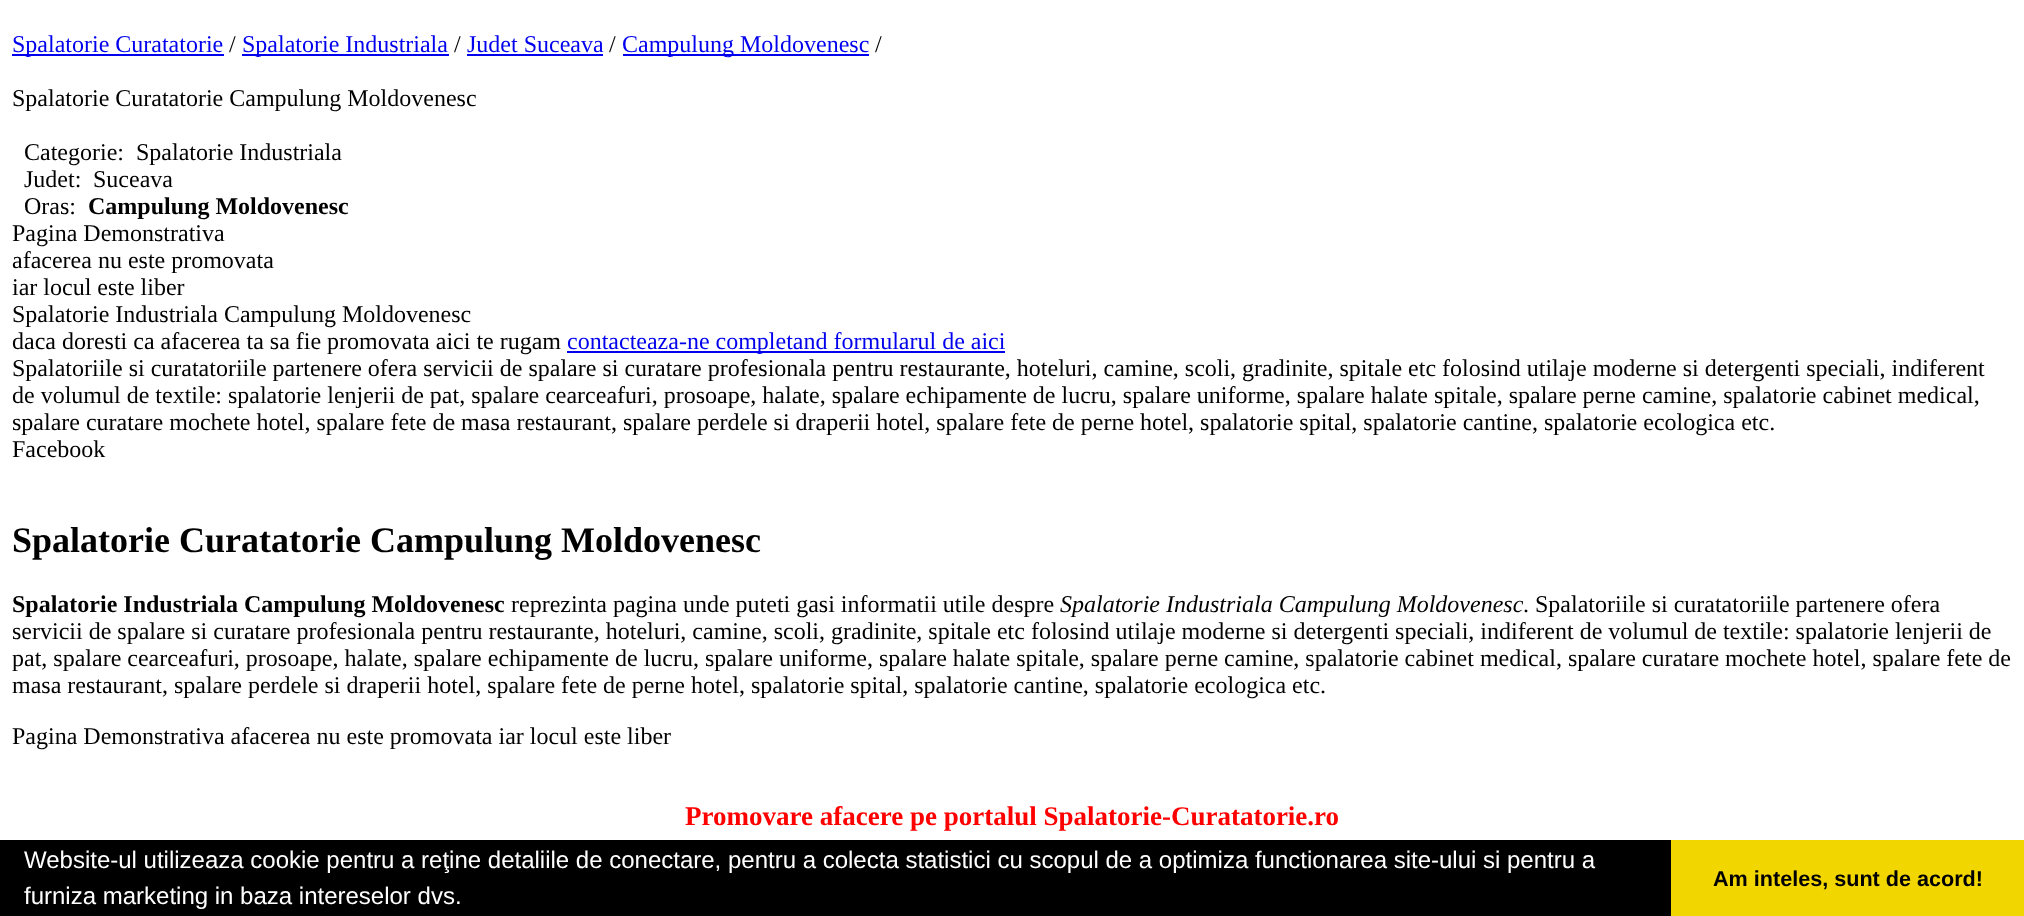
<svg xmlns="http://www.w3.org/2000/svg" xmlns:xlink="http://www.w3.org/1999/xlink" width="2024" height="916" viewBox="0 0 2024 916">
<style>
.cls-1{font:24px Liberation Serif;fill:#0000ee}
.cls-2{font:24px Liberation Serif;fill:#000000}
.cls-3{font:bold 24px Liberation Serif;fill:#000000}
.cls-4{font:bold 36px Liberation Serif;fill:#000000}
.cls-5{font:italic 24px Liberation Serif;fill:#000000}
.cls-6{font:bold 27px Liberation Serif;fill:#ff0000}
.cls-7{font:24px Liberation Sans;fill:#ffffff}
.cls-8{font:bold 21.6px Liberation Sans;fill:#000000}
</style>
<rect width="100%" height="100%" fill="#ffffff"/>
<rect fill="#0000ee" x="12" y="54" width="212" height="2"/>
<rect fill="#0000ee" x="242" y="54" width="207" height="2"/>
<rect fill="#0000ee" x="467" y="54" width="136" height="2"/>
<rect fill="#0000ee" x="623" y="54" width="246" height="2"/>
<rect fill="#0000ee" x="567" y="351" width="438" height="2"/>
<rect fill="#000000" x="0" y="840" width="1671" height="76"/>
<rect fill="#f1d600" x="1671" y="840" width="353" height="76"/>
<text class="cls-1" x="12" y="52">Spalatorie Curatatorie</text>
<text class="cls-2" x="229" y="52">/</text>
<text class="cls-1" x="242" y="52">Spalatorie Industriala</text>
<text class="cls-2" x="454" y="52">/</text>
<text class="cls-1" x="467" y="52">Judet Suceava</text>
<text class="cls-2" x="609" y="52">/</text>
<text class="cls-1" x="622" y="52">Campulung Moldovenesc</text>
<text class="cls-2" x="875" y="52">/</text>
<text class="cls-2" x="12" y="106">Spalatorie Curatatorie Campulung Moldovenesc</text>
<text class="cls-2" x="24" y="160">Categorie:</text>
<text class="cls-2" x="136" y="160">Spalatorie Industriala</text>
<text class="cls-2" x="24" y="187">Judet:</text>
<text class="cls-2" x="93" y="187">Suceava</text>
<text class="cls-2" x="24" y="214">Oras:</text>
<text class="cls-3" x="88" y="214">Campulung Moldovenesc</text>
<text class="cls-2"><tspan x="12" y="241">Pagina Demonstrativa</tspan><tspan x="12" y="268">afacerea nu este promovata</tspan><tspan x="12" y="295">iar locul este liber</tspan><tspan x="12" y="322">Spalatorie Industriala Campulung Moldovenesc</tspan><tspan x="12" y="349">daca doresti ca afacerea ta sa fie promovata aici te rugam</tspan></text>
<text class="cls-1" x="567" y="349">contacteaza-ne completand formularul de aici</text>
<text class="cls-2"><tspan x="12" y="376">Spalatoriile si curatatoriile partenere ofera servicii de spalare si curatare profesionala pentru restaurante, hoteluri, camine, scoli, gradinite, spitale etc folosind utilaje moderne si detergenti speciali, indiferent</tspan><tspan x="12" y="403">de volumul de textile: spalatorie lenjerii de pat, spalare cearceafuri, prosoape, halate, spalare echipamente de lucru, spalare uniforme, spalare halate spitale, spalare perne camine, spalatorie cabinet medical,</tspan><tspan x="12" y="430">spalare curatare mochete hotel, spalare fete de masa restaurant, spalare perdele si draperii hotel, spalare fete de perne hotel, spalatorie spital, spalatorie cantine, spalatorie ecologica etc.</tspan><tspan x="12" y="457">Facebook</tspan></text>
<text class="cls-4" x="12" y="552">Spalatorie Curatatorie Campulung Moldovenesc</text>
<text class="cls-3" x="12" y="612">Spalatorie Industriala Campulung Moldovenesc</text>
<text class="cls-2" x="511" y="612">reprezinta pagina unde puteti gasi informatii utile despre</text>
<text class="cls-5" x="1060" y="612">Spalatorie Industriala Campulung Moldovenesc</text>
<text class="cls-2" x="1523" y="612">. Spalatoriile si curatatoriile partenere ofera</text>
<text class="cls-2"><tspan x="12" y="639">servicii de spalare si curatare profesionala pentru restaurante, hoteluri, camine, scoli, gradinite, spitale etc folosind utilaje moderne si detergenti speciali, indiferent de volumul de textile: spalatorie lenjerii de</tspan><tspan x="12" y="666">pat, spalare cearceafuri, prosoape, halate, spalare echipamente de lucru, spalare uniforme, spalare halate spitale, spalare perne camine, spalatorie cabinet medical, spalare curatare mochete hotel, spalare fete de</tspan><tspan x="12" y="693">masa restaurant, spalare perdele si draperii hotel, spalare fete de perne hotel, spalatorie spital, spalatorie cantine, spalatorie ecologica etc.</tspan></text>
<text class="cls-2" x="12" y="744">Pagina Demonstrativa afacerea nu este promovata iar locul este liber</text>
<text class="cls-6" x="685" y="825">Promovare afacere pe portalul Spalatorie-Curatatorie.ro</text>
<text class="cls-7"><tspan x="24" y="868">Website-ul utilizeaza cookie pentru a reţine detaliile de conectare, pentru a colecta statistici cu scopul de a optimiza functionarea site-ului si pentru a</tspan><tspan x="24" y="904">furniza marketing in baza intereselor dvs.</tspan></text>
<text class="cls-8" x="1713" y="886">Am inteles, sunt de acord!</text>
</svg>
